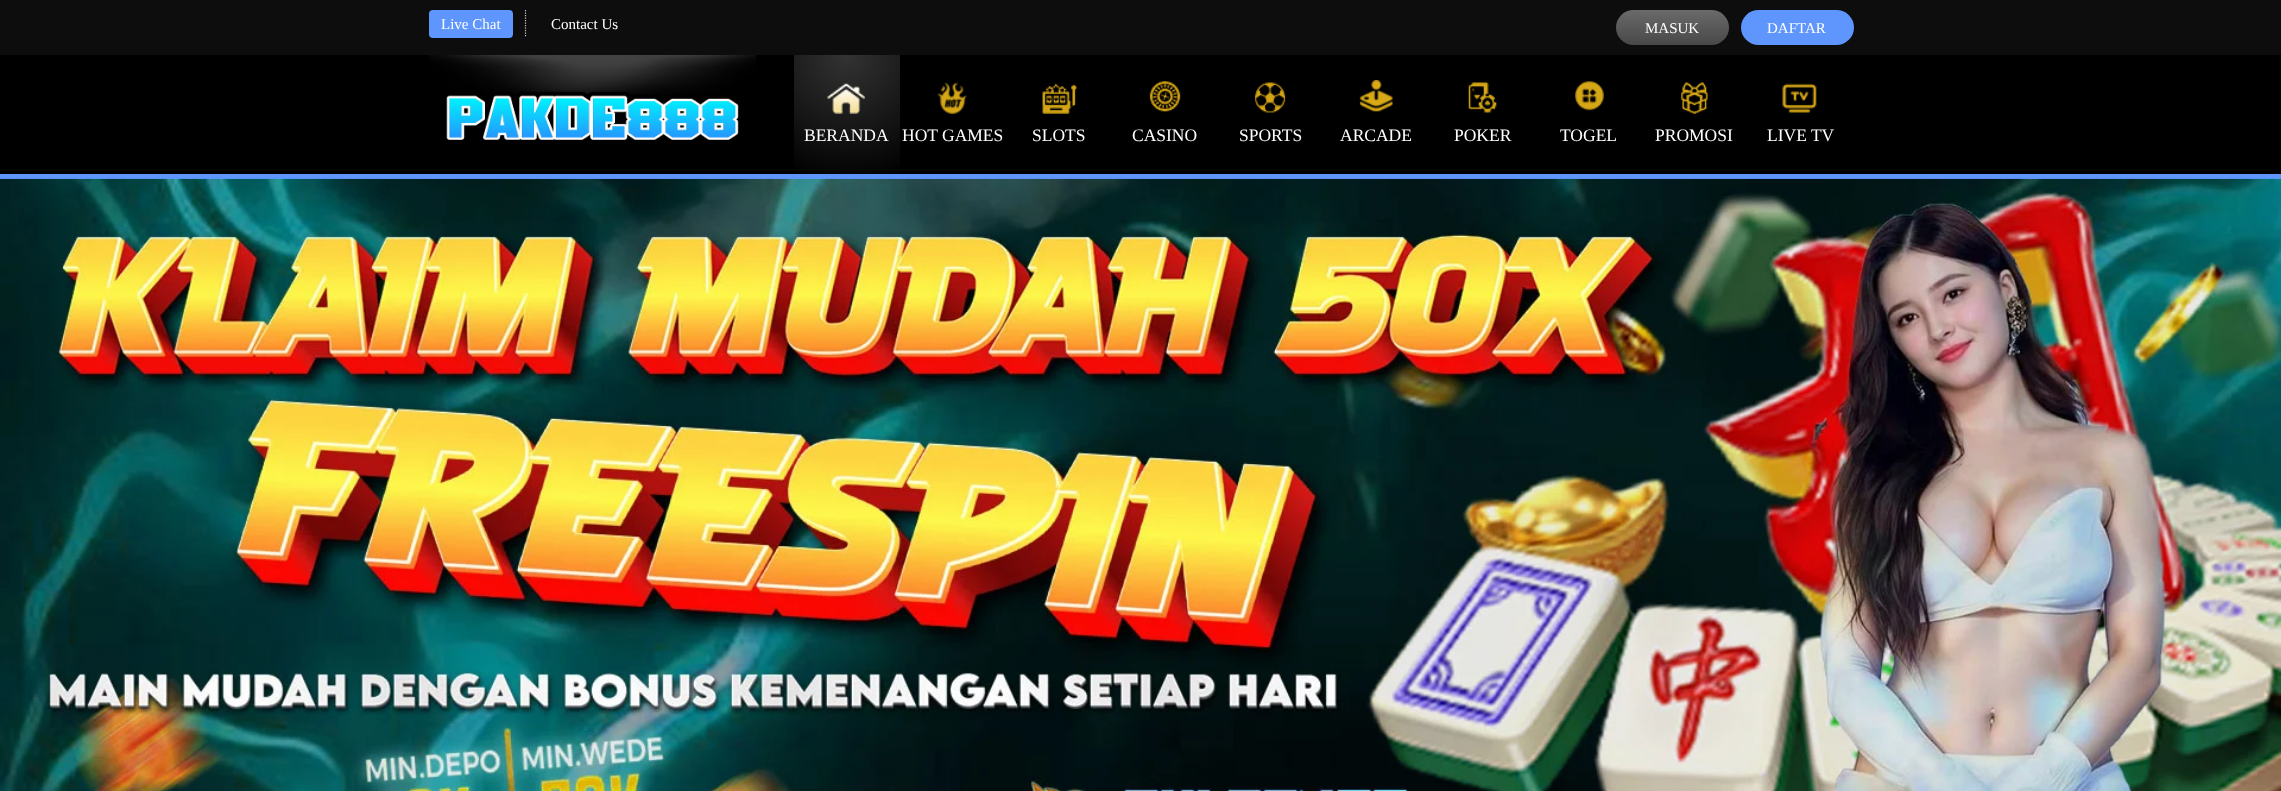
<svg xmlns="http://www.w3.org/2000/svg" xmlns:xlink="http://www.w3.org/1999/xlink" width="2281" height="791" viewBox="0 0 2281 791">
<style>
.cls-1{font:15px Liberation Serif;fill:#ffffff}
.cls-2{font:17.5px Liberation Serif;fill:#ffffff}
</style>
<defs>
<linearGradient id="g1" gradientUnits="userSpaceOnUse" x1="1673" y1="10" x2="1673" y2="45"><stop offset="0" stop-color="#6a6a6a"/><stop offset="1" stop-color="#484848"/></linearGradient>
<radialGradient id="g2" gradientUnits="userSpaceOnUse" cx="847" cy="55" r="130"><stop offset="0" stop-color="#333333"/><stop offset="1" stop-color="#000000"/></radialGradient>
</defs>
<rect width="100%" height="100%" fill="#0d0d0d"/>
<rect fill="#5e96fd" x="429" y="10" width="84" height="28" rx="4"/>
<path fill="none" stroke="#cccccc" stroke-width="1.2" stroke-dasharray="1.25 1.25" d="M525.5 10V37.5"/>
<rect fill="url(#g1)" x="1616" y="10" width="113" height="35" rx="17.5"/>
<rect fill="#5e96fd" x="1741" y="10" width="113" height="35" rx="17.5"/>
<rect fill="#000000" x="0" y="55" width="2281" height="119"/>
<rect fill="#5e96fd" x="0" y="174" width="2281" height="5"/>
<image xlink:href="image0.png" x="429" y="55" width="327" height="56"/>
<image xlink:href="image1.png" x="446" y="91" width="293" height="49"/>
<rect fill="url(#g2)" x="794" y="55" width="106" height="119"/>
<image xlink:href="image2.png" x="827" y="83" width="38" height="31"/>
<image xlink:href="image3.png" x="937" y="82" width="30" height="32"/>
<image xlink:href="image4.png" x="1042" y="83" width="35" height="31"/>
<image xlink:href="image5.png" x="1149" y="81" width="32" height="31"/>
<image xlink:href="image6.png" x="1254" y="82" width="32" height="31"/>
<image xlink:href="image7.png" x="1359" y="80" width="34" height="32"/>
<image xlink:href="image8.png" x="1468" y="82" width="29" height="31"/>
<image xlink:href="image9.png" x="1574" y="81" width="30" height="30"/>
<image xlink:href="image10.png" x="1681" y="82" width="27" height="32"/>
<image xlink:href="image11.png" x="1782" y="83" width="35" height="30"/>
<image xlink:href="image12.png" x="0" y="178" width="2281" height="613"/>
<text class="cls-1" x="441" y="29">Live Chat</text>
<text class="cls-1" x="551" y="29">Contact Us</text>
<text class="cls-1" x="1645" y="33">MASUK</text>
<text class="cls-1" x="1767" y="33">DAFTAR</text>
<text class="cls-2" x="804" y="141">BERANDA</text>
<text class="cls-2" x="902" y="141">HOT GAMES</text>
<text class="cls-2" x="1032" y="141">SLOTS</text>
<text class="cls-2" x="1132" y="141">CASINO</text>
<text class="cls-2" x="1239" y="141">SPORTS</text>
<text class="cls-2" x="1340" y="141">ARCADE</text>
<text class="cls-2" x="1454" y="141">POKER</text>
<text class="cls-2" x="1560" y="141">TOGEL</text>
<text class="cls-2" x="1655" y="141">PROMOSI</text>
<text class="cls-2" x="1767" y="141">LIVE TV</text>
</svg>
